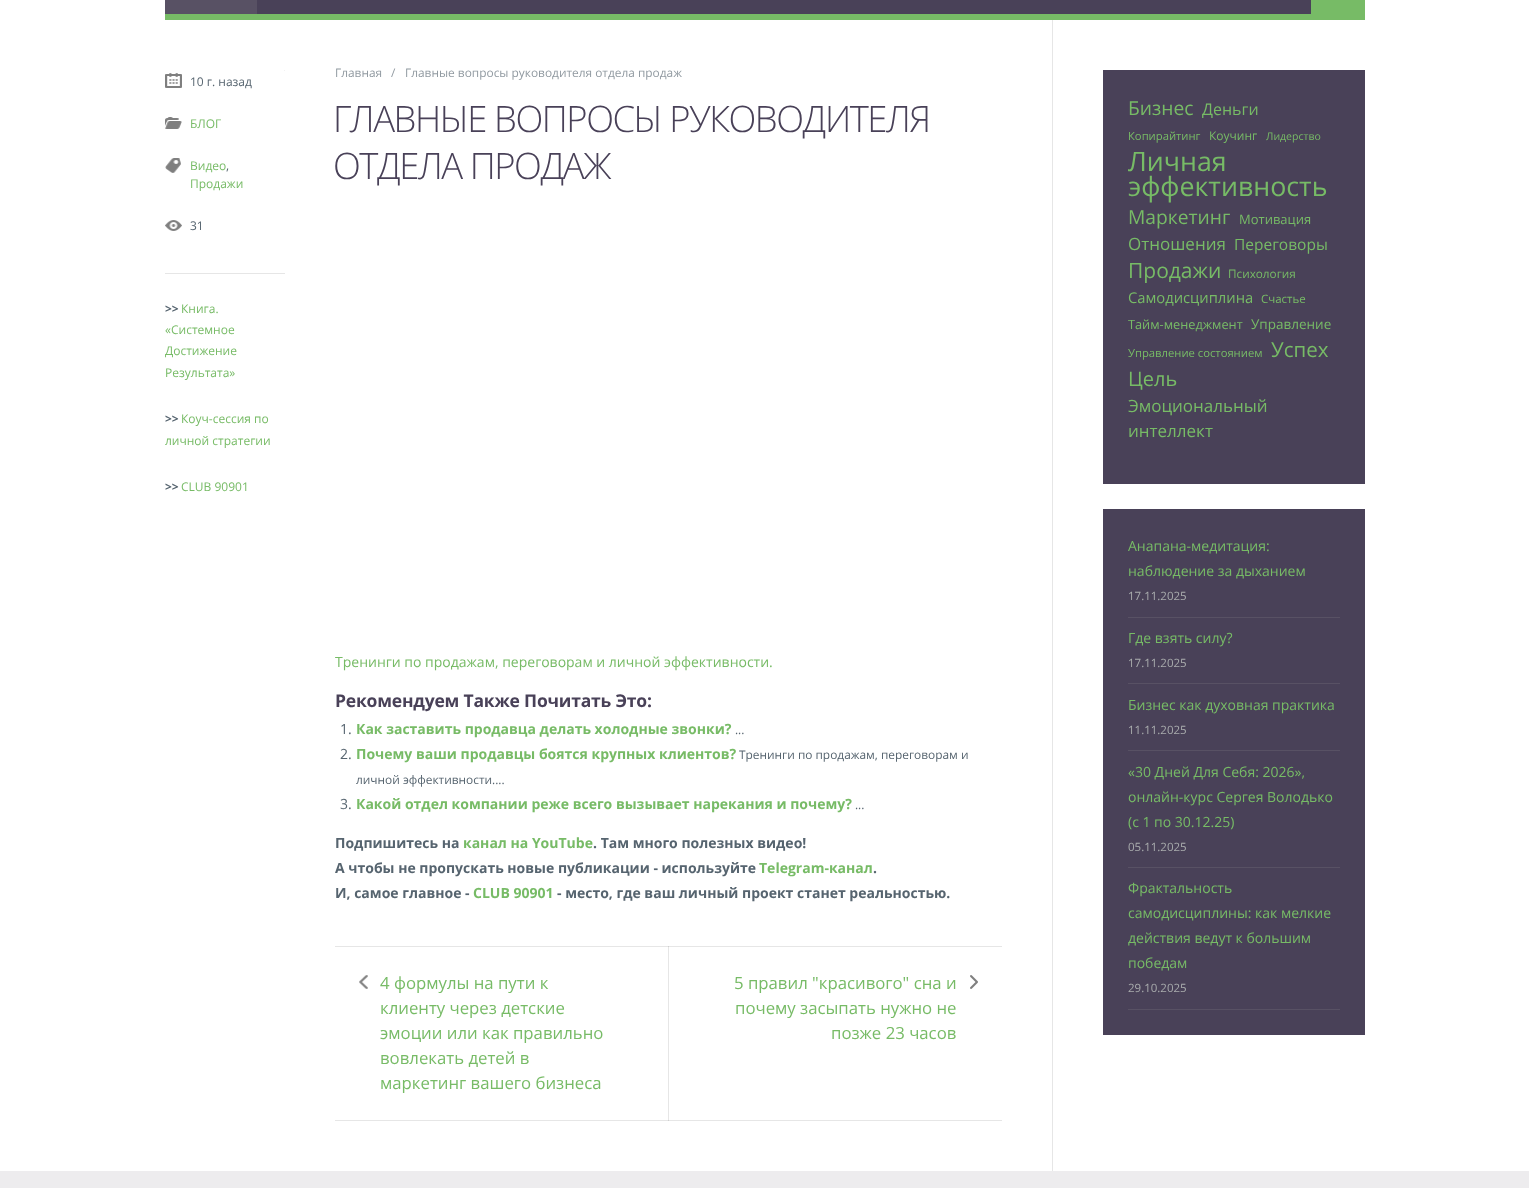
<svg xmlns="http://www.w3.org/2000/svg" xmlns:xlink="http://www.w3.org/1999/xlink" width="1529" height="1188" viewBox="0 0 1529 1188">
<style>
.cls-1{font:12px Open Sans;fill:#56646f}
.cls-2{font:12px Open Sans;fill:#77bb66}
.cls-3{font:bold 12px Open Sans;fill:#56646f}
.cls-4{font:11.9px Open Sans;fill:#919aa1}
.cls-5{font:300 36.4px Open Sans;letter-spacing:-1.45px;fill:#494158}
.cls-6{font:14px Open Sans;fill:#77bb66}
.cls-7{font:bold 17.5px Open Sans;letter-spacing:-0.2px;fill:#494158}
.cls-8{font:14px Open Sans;fill:#56646f}
.cls-9{font:bold 14px Open Sans;fill:#77bb66}
.cls-10{font:11.9px Open Sans;fill:#56646f}
.cls-11{font:bold 14px Open Sans;fill:#56646f}
.cls-12{font:16.75px Open Sans;fill:#77bb66}
.cls-13{font:19.25px Open Sans;fill:#77bb66}
.cls-14{font:16px Open Sans;fill:#77bb66}
.cls-15{font:11.25px Open Sans;fill:#77bb66}
.cls-16{font:10.5px Open Sans;fill:#77bb66}
.cls-17{font:26.75px Open Sans;fill:#77bb66}
.cls-18{font:13px Open Sans;fill:#77bb66}
.cls-19{font:17px Open Sans;fill:#77bb66}
.cls-20{font:15.5px Open Sans;fill:#77bb66}
.cls-21{font:21px Open Sans;fill:#77bb66}
.cls-22{font:11.75px Open Sans;fill:#77bb66}
.cls-23{font:14.75px Open Sans;fill:#77bb66}
.cls-24{font:11.5px Open Sans;fill:#77bb66}
.cls-25{font:12.75px Open Sans;fill:#77bb66}
.cls-26{font:13.5px Open Sans;fill:#77bb66}
.cls-27{font:20.5px Open Sans;fill:#77bb66}
.cls-28{font:20px Open Sans;fill:#77bb66}
.cls-29{font:11.5px Open Sans;fill:#aaadae}
</style>
<rect width="100%" height="100%" fill="#ffffff"/>
<rect fill="#e6e6e6" x="335" y="946" width="667" height="1"/>
<rect fill="#e6e6e6" x="335" y="1120" width="667" height="1"/>
<rect fill="#494158" x="257" y="0" width="1054" height="14"/>
<rect fill="#77bb66" x="165" y="14" width="1200" height="6"/>
<rect fill="#585164" x="165" y="0" width="92" height="14"/>
<rect fill="#77bb66" x="1311" y="0" width="54" height="14"/>
<rect fill="#e6e6e6" x="1052" y="20" width="1" height="1151"/>
<rect fill="#f2f2f2" x="284" y="70" width="1" height="1"/>
<rect fill="#e6e6e6" x="165" y="273" width="120" height="1"/>
<image xlink:href="image0.png" x="165" y="73" width="17" height="15"/>
<image xlink:href="image1.png" x="165" y="117" width="17" height="12"/>
<image xlink:href="image2.png" x="165" y="158" width="16" height="15"/>
<image xlink:href="image3.png" x="165" y="220" width="17" height="11"/>
<rect fill="#e6e6e6" x="668" y="946" width="1" height="175"/>
<rect fill="#cfcfcf" x="668" y="946" width="1" height="1"/>
<rect fill="#cfcfcf" x="668" y="1120" width="1" height="1"/>
<image xlink:href="image4.png" x="359" y="975" width="9" height="14"/>
<image xlink:href="image5.png" x="970" y="975" width="8" height="14"/>
<rect fill="#494158" x="1103" y="70" width="262" height="414"/>
<rect fill="#494158" x="1103" y="509" width="262" height="526"/>
<rect fill="#585164" x="1128" y="617" width="212" height="1"/>
<rect fill="#585164" x="1128" y="683" width="212" height="1"/>
<rect fill="#585164" x="1128" y="750" width="212" height="1"/>
<rect fill="#585164" x="1128" y="867" width="212" height="1"/>
<rect fill="#585164" x="1128" y="1009" width="212" height="1"/>
<rect fill="#edecee" x="0" y="1171" width="1529" height="17"/>
<text class="cls-1" x="190" y="86">10 г. назад</text>
<text class="cls-2" x="190" y="128">БЛОГ</text>
<text class="cls-2" x="190" y="170">Видео</text>
<text class="cls-1" x="226" y="170">,</text>
<text class="cls-2" x="190" y="188">Продажи</text>
<text class="cls-1" x="190" y="230">31</text>
<text class="cls-3" x="165" y="313">&gt;&gt;</text>
<text class="cls-2" x="181" y="313">Книга.</text>
<text class="cls-2"><tspan x="165" y="334">«Системное</tspan><tspan x="165" y="355">Достижение</tspan><tspan x="165" y="377">Результата»</tspan></text>
<text class="cls-3" x="165" y="423">&gt;&gt;</text>
<text class="cls-2" x="181" y="423">Коуч-сессия по</text>
<text class="cls-2" x="165" y="445">личной стратегии</text>
<text class="cls-3" x="165" y="491">&gt;&gt;</text>
<text class="cls-2" x="181" y="491">CLUB 90901</text>
<text class="cls-4" x="335" y="77">Главная</text>
<text class="cls-4" x="391" y="77">/</text>
<text class="cls-4" x="405" y="77">Главные вопросы руководителя отдела продаж</text>
<text class="cls-5"><tspan x="333" y="132">ГЛАВНЫЕ ВОПРОСЫ РУКОВОДИТЕЛЯ</tspan><tspan x="333" y="179">ОТДЕЛА ПРОДАЖ</tspan></text>
<text class="cls-6" x="335" y="667">Тренинги по продажам, переговорам и личной эффективности.</text>
<text class="cls-7" x="335" y="707">Рекомендуем Также Почитать Это:</text>
<text class="cls-8" x="340" y="734">1.</text>
<text class="cls-9" x="356" y="734">Как заставить продавца делать холодные звонки?</text>
<text class="cls-10" x="735" y="734">...</text>
<text class="cls-8" x="340" y="759">2.</text>
<text class="cls-9" x="356" y="759">Почему ваши продавцы боятся крупных клиентов?</text>
<text class="cls-10" x="739" y="759">Тренинги по продажам, переговорам и</text>
<text class="cls-10" x="356" y="784">личной эффективности....</text>
<text class="cls-8" x="340" y="809">3.</text>
<text class="cls-9" x="356" y="809">Какой отдел компании реже всего вызывает нарекания и почему?</text>
<text class="cls-10" x="855" y="809">...</text>
<text class="cls-11" x="335" y="848">Подпишитесь на</text>
<text class="cls-9" x="463" y="848">канал на YouTube</text>
<text class="cls-11" x="593" y="848">. Там много полезных видео!</text>
<text class="cls-11" x="335" y="873">А чтобы не пропускать новые публикации - используйте</text>
<text class="cls-9" x="759" y="873">Telegram-канал</text>
<text class="cls-11" x="873" y="873">.</text>
<text class="cls-11" x="335" y="898">И, самое главное -</text>
<text class="cls-9" x="473" y="898">CLUB 90901</text>
<text class="cls-11" x="557" y="898">- место, где ваш личный проект станет реальностью.</text>
<text class="cls-12"><tspan x="380" y="989">4 формулы на пути к</tspan><tspan x="380" y="1014">клиенту через детские</tspan><tspan x="380" y="1039">эмоции или как правильно</tspan><tspan x="380" y="1064">вовлекать детей в</tspan><tspan x="380" y="1089">маркетинг вашего бизнеса</tspan></text>
<text class="cls-12" x="734" y="989">5 правил "красивого" сна и</text>
<text class="cls-12" x="735" y="1014">почему засыпать нужно не</text>
<text class="cls-12" x="831" y="1039">позже 23 часов</text>
<text class="cls-13" x="1128" y="115">Бизнес</text>
<text class="cls-14" x="1202" y="115">Деньги</text>
<text class="cls-15" x="1128" y="140">Копирайтинг</text>
<text class="cls-2" x="1209" y="140">Коучинг</text>
<text class="cls-16" x="1266" y="140">Лидерство</text>
<text class="cls-17"><tspan x="1128" y="171">Личная</tspan><tspan x="1128" y="196">эффективность</tspan></text>
<text class="cls-13" x="1128" y="224">Маркетинг</text>
<text class="cls-18" x="1239" y="224">Мотивация</text>
<text class="cls-19" x="1128" y="250">Отношения</text>
<text class="cls-20" x="1234" y="250">Переговоры</text>
<text class="cls-21" x="1128" y="278">Продажи</text>
<text class="cls-22" x="1228" y="278">Психология</text>
<text class="cls-23" x="1128" y="303">Самодисциплина</text>
<text class="cls-24" x="1261" y="303">Счастье</text>
<text class="cls-25" x="1128" y="329">Тайм-менеджмент</text>
<text class="cls-26" x="1251" y="329">Управление</text>
<text class="cls-15" x="1128" y="357">Управление состоянием</text>
<text class="cls-27" x="1271" y="357">Успех</text>
<text class="cls-28" x="1128" y="386">Цель</text>
<text class="cls-19"><tspan x="1128" y="412">Эмоциональный</tspan><tspan x="1128" y="437">интеллект</tspan></text>
<text class="cls-6"><tspan x="1128" y="551">Анапана-медитация:</tspan><tspan x="1128" y="576">наблюдение за дыханием</tspan></text>
<text class="cls-29" x="1128" y="600">17.11.2025</text>
<text class="cls-6" x="1128" y="643">Где взять силу?</text>
<text class="cls-29" x="1128" y="667">17.11.2025</text>
<text class="cls-6" x="1128" y="710">Бизнес как духовная практика</text>
<text class="cls-29" x="1128" y="734">11.11.2025</text>
<text class="cls-6"><tspan x="1128" y="777">«30 Дней Для Себя: 2026»,</tspan><tspan x="1128" y="802">онлайн-курс Сергея Володько</tspan><tspan x="1128" y="827">(c 1 по 30.12.25)</tspan></text>
<text class="cls-29" x="1128" y="851">05.11.2025</text>
<text class="cls-6"><tspan x="1128" y="893">Фрактальность</tspan><tspan x="1128" y="918">самодисциплины: как мелкие</tspan><tspan x="1128" y="943">действия ведут к большим</tspan><tspan x="1128" y="968">победам</tspan></text>
<text class="cls-29" x="1128" y="992">29.10.2025</text>
</svg>
